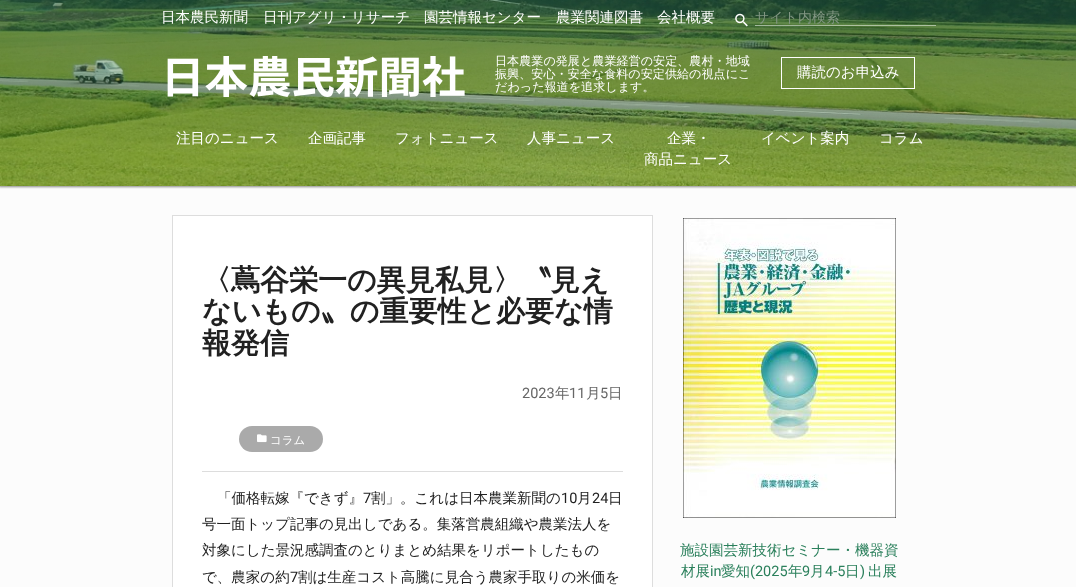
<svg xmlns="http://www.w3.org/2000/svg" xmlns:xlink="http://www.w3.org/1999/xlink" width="1076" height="587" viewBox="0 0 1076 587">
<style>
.cls-1{font:500 14.5px WenQuanYi Zen Hei;fill:#ffffff}
.cls-2{font:500 14px WenQuanYi Zen Hei;fill:#829683}
.cls-3{font:bold 43.5px Noto Sans JP;fill:#ffffff}
.cls-4{font:500 12.1px WenQuanYi Zen Hei;fill:#ffffff}
.cls-5{font:bold 29px WenQuanYi Zen Hei;fill:#212121}
.cls-6{font:14.5px Roboto;fill:#666666}
.cls-7{font:500 14.5px WenQuanYi Zen Hei;fill:#666666}
.cls-8{font:500 11.5px WenQuanYi Zen Hei;fill:#ffffff}
.cls-9{font:500 14.5px WenQuanYi Zen Hei;fill:#212121}
.cls-10{font:14.5px Roboto;fill:#212121}
.cls-11{font:500 14.5px WenQuanYi Zen Hei;fill:#2b805c}
.cls-12{font:14.5px Roboto;fill:#2b805c}
</style>
<rect width="100%" height="100%" fill="#fcfcfc"/>
<rect fill="#888888" filter="blur(1px)" x="-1" y="-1" width="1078" height="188"/>
<image xlink:href="image0.png" x="0" y="0" width="1076" height="186"/>
<image xlink:href="image1.png" x="735" y="13" width="13" height="14"/>
<rect fill="#ffffff" fill-opacity="0.5" x="755" y="25" width="181" height="1"/>
<rect fill="none" stroke="#ffffff" x="781.5" y="57.5" width="133" height="31"/>
<rect fill="#ffffff" stroke="#dddddd" x="172.5" y="215.5" width="480" height="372"/>
<rect fill="#aaaaaa" x="239" y="426" width="84" height="26" rx="13"/>
<image xlink:href="image2.png" x="257" y="434" width="10" height="9"/>
<rect fill="#dddddd" x="202" y="471" width="421" height="1"/>
<image xlink:href="image3.png" x="683" y="218" width="213" height="300"/>
<text class="cls-1" x="161" y="22">日本農民新聞</text>
<text class="cls-1" x="263" y="22">日刊アグリ・リサーチ</text>
<text class="cls-1" x="424" y="22">園芸情報センター</text>
<text class="cls-1" x="556" y="22">農業関連図書</text>
<text class="cls-1" x="657" y="22">会社概要</text>
<text class="cls-2" x="755" y="22">サイト内検索</text>
<text class="cls-3" x="161" y="93">日本農民新聞社</text>
<text class="cls-4"><tspan x="495" y="65">日本農業の発展と農業経営の安定、農村・地域</tspan><tspan x="495" y="78">振興、安心・安全な食料の安定供給の視点にこ</tspan><tspan x="495" y="91">だわった報道を追求します。</tspan></text>
<text class="cls-1" x="797" y="77">購読のお申込み</text>
<text class="cls-1" x="176" y="143">注目のニュース</text>
<text class="cls-1" x="308" y="143">企画記事</text>
<text class="cls-1" x="395" y="143">フォトニュース</text>
<text class="cls-1" x="527" y="143">人事ニュース</text>
<text class="cls-1" x="667" y="143">企業・</text>
<text class="cls-1" x="644" y="164">商品ニュース</text>
<text class="cls-1" x="761" y="143">イベント案内</text>
<text class="cls-1" x="879" y="143">コラム</text>
<text class="cls-5"><tspan x="202" y="290">〈蔦谷栄一の異見私見〉〝見え</tspan><tspan x="202" y="321">ないもの〟の重要性と必要な情</tspan><tspan x="202" y="353">報発信</tspan></text>
<text class="cls-6" x="522" y="398">2023</text>
<text class="cls-7" x="555" y="398">年</text>
<text class="cls-6" x="569" y="398">11</text>
<text class="cls-7" x="586" y="398">月</text>
<text class="cls-6" x="600" y="398">5</text>
<text class="cls-7" x="608" y="398">日</text>
<text class="cls-8" x="270" y="444">コラム</text>
<text class="cls-9" x="217" y="503">「価格転嫁『できず』</text>
<text class="cls-10" x="363" y="503">7</text>
<text class="cls-9" x="371" y="503">割」。これは日本農業新聞の</text>
<text class="cls-10" x="561" y="503">10</text>
<text class="cls-9" x="577" y="503">月</text>
<text class="cls-10" x="592" y="503">24</text>
<text class="cls-9" x="608" y="503">日</text>
<text class="cls-9"><tspan x="202" y="529">号一面トップ記事の見出しである。集落営農組織や農業法人を</tspan><tspan x="202" y="555">対象にした景況感調査のとりまとめ結果をリポートしたもの</tspan><tspan x="202" y="582">で、農家の約</tspan></text>
<text class="cls-10" x="290" y="582">7</text>
<text class="cls-9" x="298" y="582">割は生産コスト高騰に見合う農家手取りの米価を</text>
<text class="cls-11" x="680" y="555">施設園芸新技術セミナー・機器資</text>
<text class="cls-11" x="681" y="576">材展</text>
<text class="cls-12" x="710" y="576">in</text>
<text class="cls-11" x="721" y="576">愛知</text>
<text class="cls-12" x="750" y="576">(2025</text>
<text class="cls-11" x="788" y="576">年</text>
<text class="cls-12" x="802" y="576">9</text>
<text class="cls-11" x="810" y="576">月</text>
<text class="cls-12" x="825" y="576">4-5</text>
<text class="cls-11" x="845" y="576">日</text>
<text class="cls-12" x="860" y="576">)</text>
<text class="cls-11" x="868" y="576">出展</text>
</svg>
